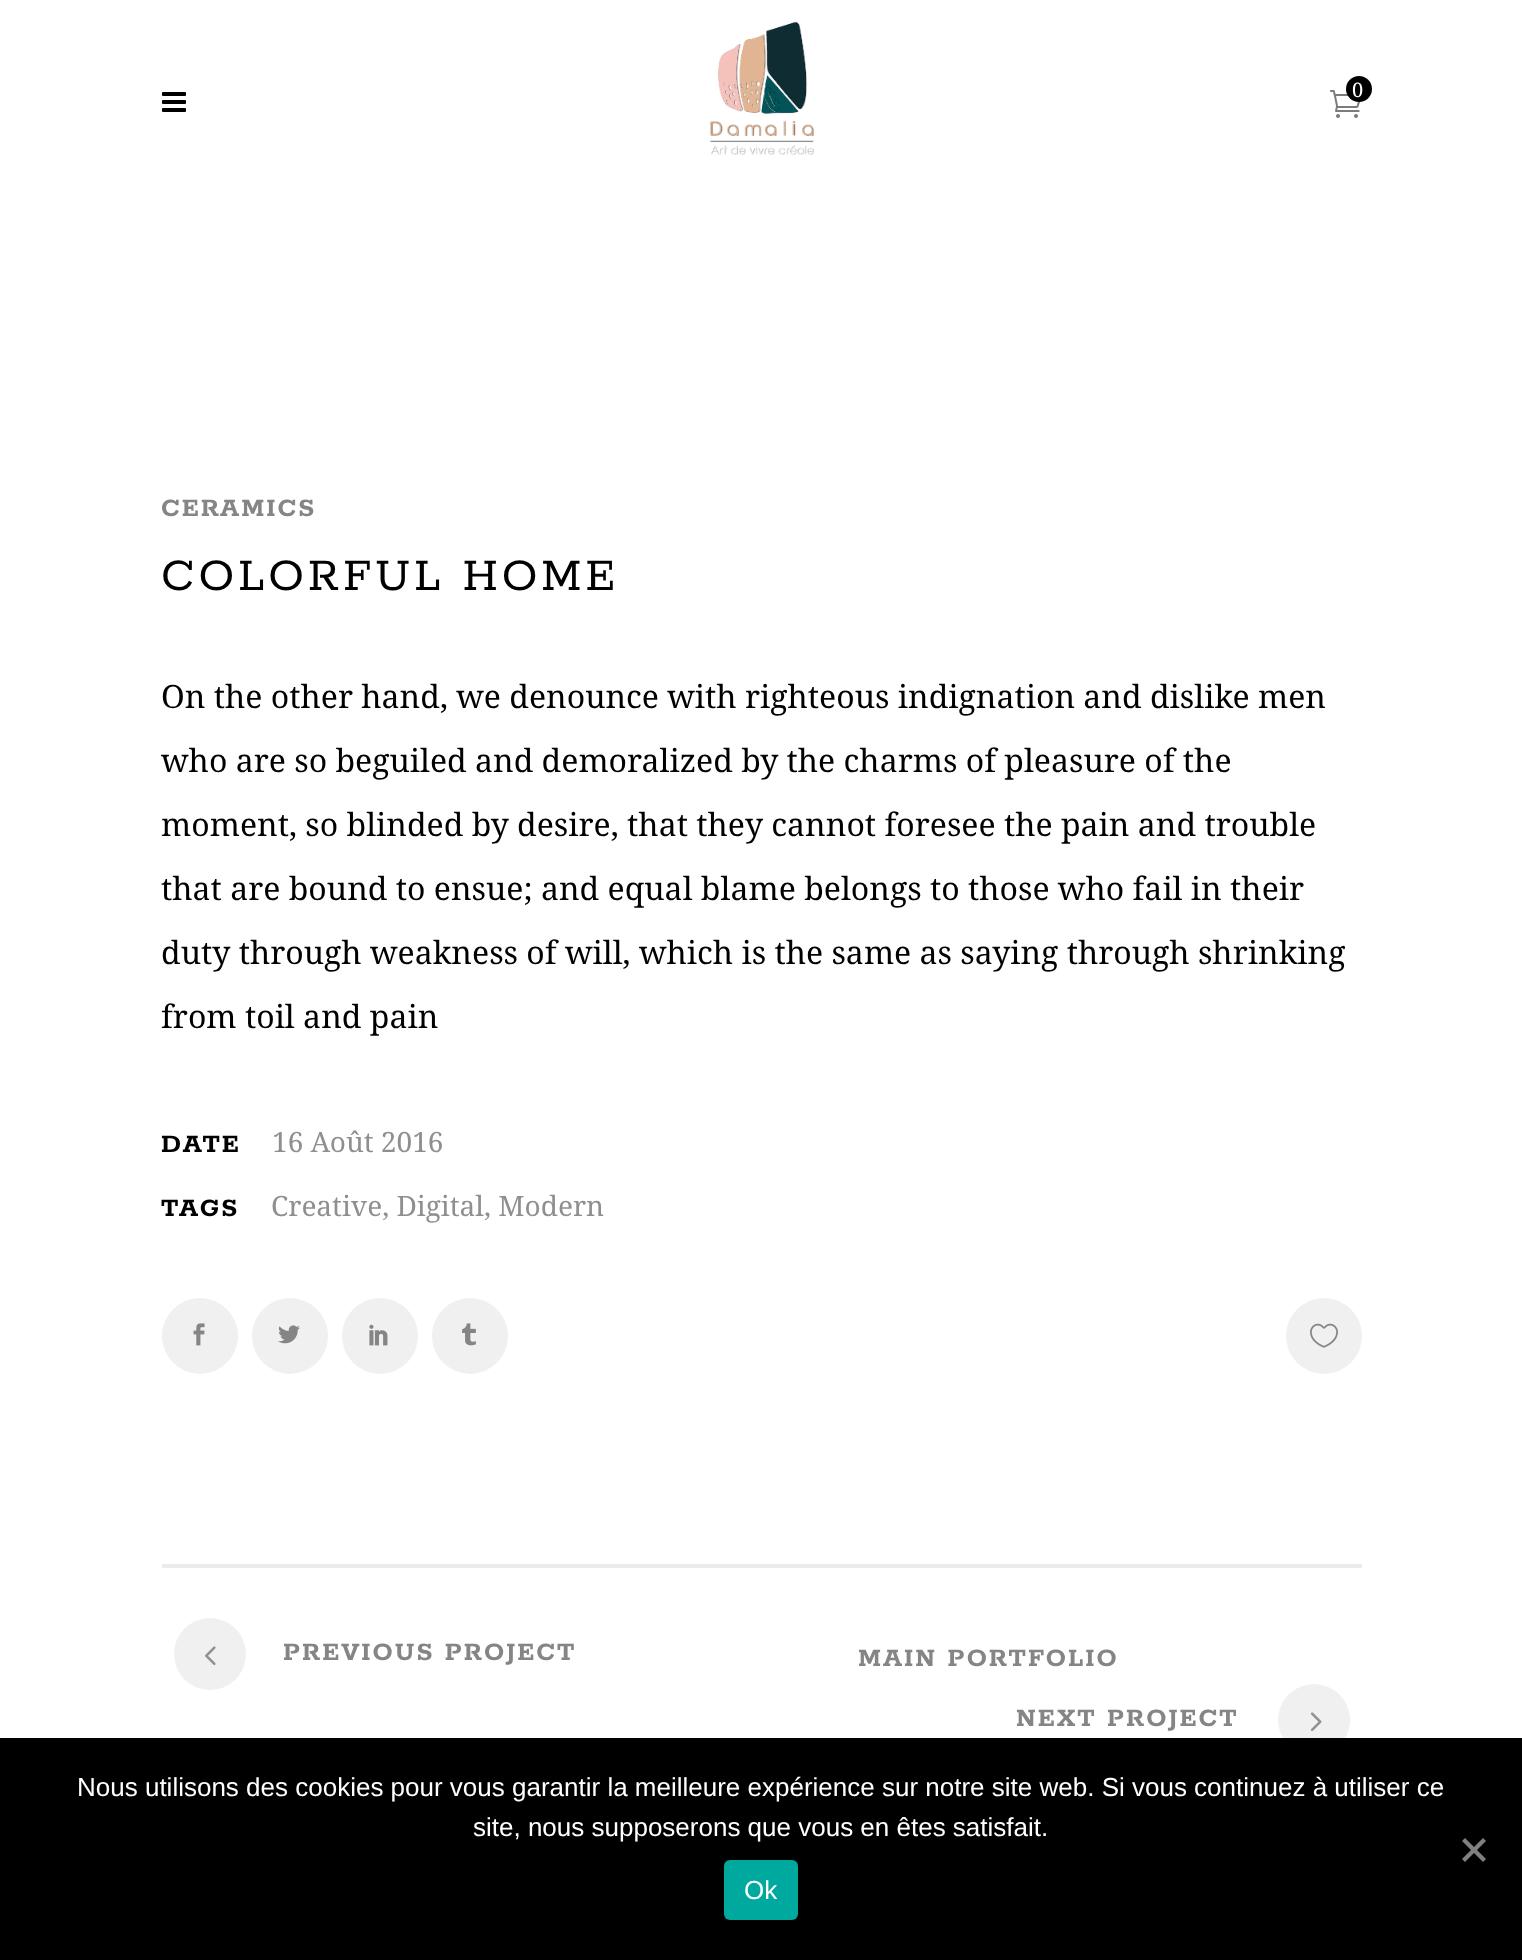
<svg xmlns="http://www.w3.org/2000/svg" xmlns:xlink="http://www.w3.org/1999/xlink" width="1522" height="1960" viewBox="0 0 1522 1960">
<style>
.cls-1{font:20px Noto Serif;fill:#ffffff}
.cls-2{font:bold 28px Rokkitt;letter-spacing:2px;fill:#858585}
.cls-3{font:50px Rokkitt;letter-spacing:4px;fill:#000000}
.cls-4{font:32px Noto Serif;fill:#000000}
.cls-5{font:bold 28px Rokkitt;letter-spacing:2px;fill:#000000}
.cls-6{font:28px Noto Serif;fill:#8f8f8f}
.cls-7{font:26px Liberation Sans;fill:#ffffff}
</style>
<rect width="100%" height="100%" fill="#ffffff"/>
<image xlink:href="image0.png" x="710" y="21" width="104" height="134"/>
<image xlink:href="image1.png" x="1330" y="90" width="31" height="28"/>
<circle fill="#000000" cx="1359" cy="89" r="13"/>
<image xlink:href="image2.png" x="162" y="92" width="24" height="20"/>
<circle fill="#f0f0f0" cx="200" cy="1336" r="38"/>
<image xlink:href="image3.png" x="193" y="1323" width="12" height="23"/>
<circle fill="#f0f0f0" cx="290" cy="1336" r="38"/>
<image xlink:href="image4.png" x="278" y="1325" width="22" height="19"/>
<circle fill="#f0f0f0" cx="380" cy="1336" r="38"/>
<image xlink:href="image5.png" x="369" y="1324" width="19" height="22"/>
<circle fill="#f0f0f0" cx="470" cy="1336" r="38"/>
<image xlink:href="image6.png" x="462" y="1323" width="14" height="23"/>
<circle fill="#f0f0f0" cx="1324" cy="1336" r="38"/>
<image xlink:href="image7.png" x="1310" y="1323" width="28" height="25"/>
<rect fill="#ebebeb" x="162" y="1564" width="1200" height="4"/>
<circle fill="#f0f0f0" cx="210" cy="1654" r="36"/>
<image xlink:href="image8.png" x="205" y="1646" width="11" height="20"/>
<circle fill="#f0f0f0" cx="1314" cy="1720" r="36"/>
<image xlink:href="image9.png" x="1310" y="1712" width="12" height="19"/>
<rect fill="#000000" x="0" y="1738" width="1522" height="222"/>
<path fill="#808080" d="M1483 1838L1486 1841L1465 1862L1462 1859Z"/>
<path fill="#808080" d="M1462 1841L1465 1838L1486 1859L1483 1862Z"/>
<rect fill="#00a99d" x="724" y="1860" width="74" height="60" rx="6"/>
<text class="cls-1" x="1352" y="97">0</text>
<text class="cls-2" x="161" y="516">CERAMICS</text>
<text class="cls-3" x="161" y="590">COLORFUL HOME</text>
<text class="cls-4" x="161" y="708">On the other hand, we denounce with righteous indignation and dislike men</text>
<text class="cls-4" x="161" y="772">who are so beguiled and demoralized by the charms of pleasure of the</text>
<text class="cls-4" x="161" y="836">moment, so blinded by desire, that they cannot foresee the pain and trouble</text>
<text class="cls-4" x="161" y="900">that are bound to ensue; and equal blame belongs to those who fail in their</text>
<text class="cls-4" x="161" y="964">duty through weakness of will, which is the same as saying through shrinking</text>
<text class="cls-4" x="161" y="1028">from toil and pain</text>
<text class="cls-5" x="161" y="1152">DATE</text>
<text class="cls-6" x="272" y="1152">16 Août 2016</text>
<text class="cls-5" x="161" y="1216">TAGS</text>
<text class="cls-6" x="271" y="1216">Creative, Digital, Modern</text>
<text class="cls-2" x="283" y="1660">PREVIOUS PROJECT</text>
<text class="cls-2" x="858" y="1666">MAIN PORTFOLIO</text>
<text class="cls-2" x="1016" y="1726">NEXT PROJECT</text>
<text class="cls-7" x="77" y="1796">Nous utilisons des cookies pour vous garantir la meilleure expérience sur notre site web. Si vous continuez à utiliser ce</text>
<text class="cls-7" x="473" y="1836">site, nous supposerons que vous en êtes satisfait.</text>
<text class="cls-7" x="744" y="1899">Ok</text>
</svg>
